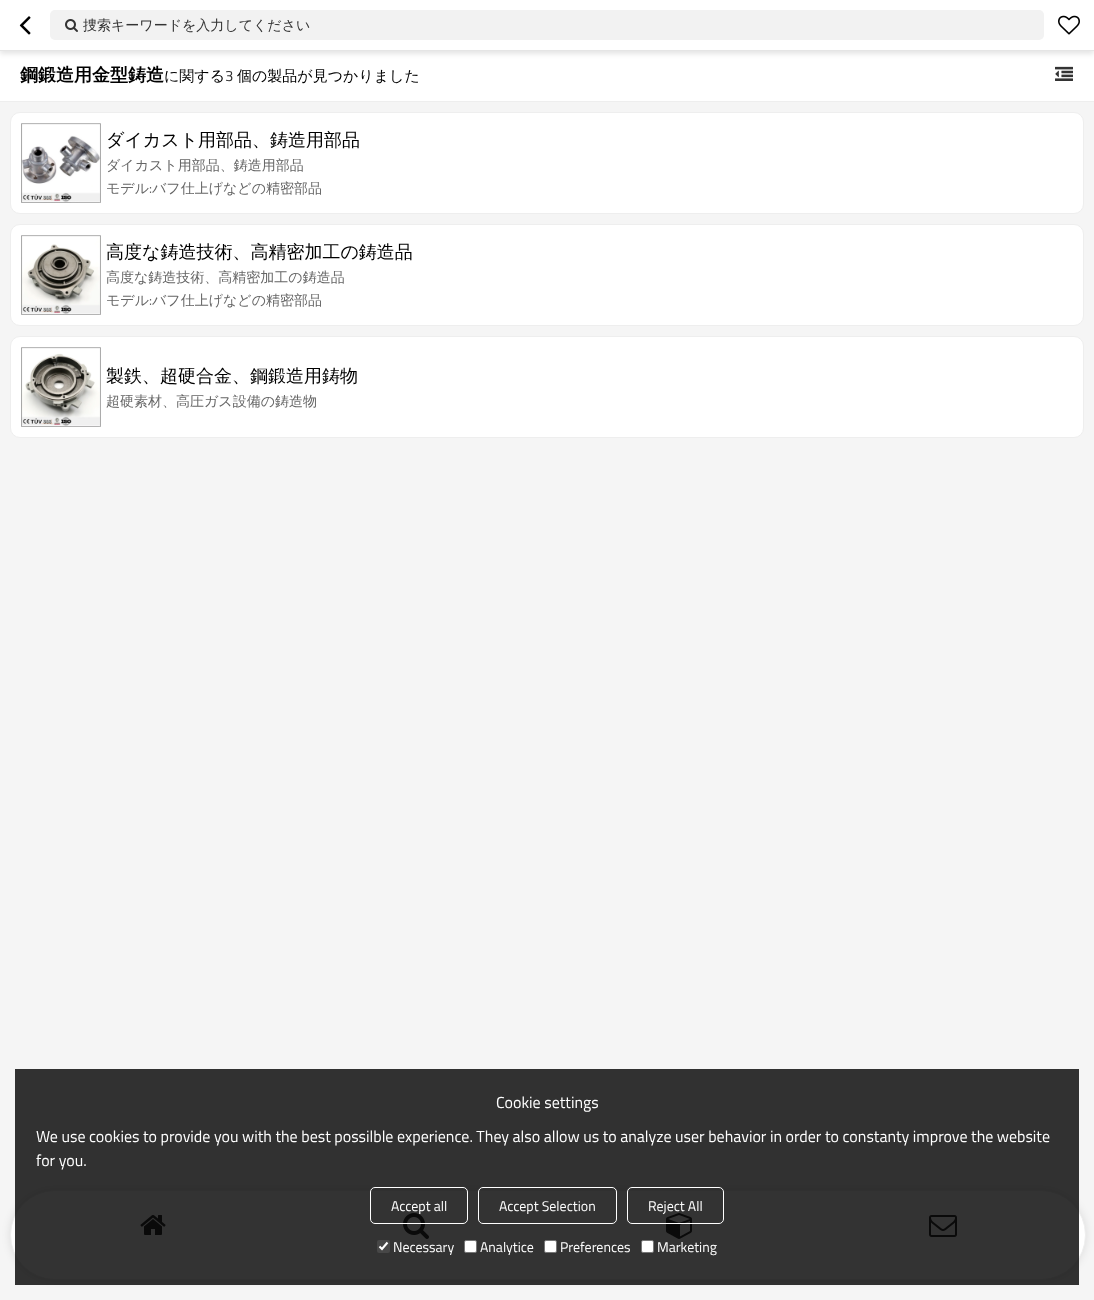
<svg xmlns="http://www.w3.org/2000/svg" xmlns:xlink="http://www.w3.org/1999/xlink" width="1094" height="1300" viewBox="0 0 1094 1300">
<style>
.cls-1{font:500 14px WenQuanYi Zen Hei;fill:#333333}
.cls-2{font:bold 18px WenQuanYi Zen Hei;fill:#000000}
.cls-3{font:500 15px WenQuanYi Zen Hei;fill:#000000}
.cls-4{font:15px Titillium Web;fill:#333333}
.cls-5{font:500 18px WenQuanYi Zen Hei;fill:#000000}
.cls-6{font:500 14px WenQuanYi Zen Hei;fill:#666666}
.cls-7{font:14px Titillium Web;fill:#666666}
.cls-8{font:16px Titillium Web;fill:#ffffff}
.cls-9{font:14px Titillium Web;fill:#ffffff}
</style>
<rect width="100%" height="100%" fill="#f5f5f5"/>
<rect fill="#ffffff" x="0" y="51" width="1094" height="50"/>
<rect fill="#000000" fill-opacity="0.1" filter="blur(2.5px)" x="0" y="3" width="1094" height="51"/>
<rect fill="#ffffff" x="0" y="0" width="1094" height="50"/>
<rect fill="#e5e5e5" x="0" y="50" width="1094" height="1"/>
<image xlink:href="image0.png" x="19" y="16" width="12" height="19"/>
<rect fill="#f2f2f2" x="50" y="10" width="994" height="30" rx="5"/>
<image xlink:href="image1.png" x="65" y="19" width="13" height="13"/>
<image xlink:href="image2.png" x="1058" y="15" width="22" height="20"/>
<rect fill="#eeeeee" x="0" y="101" width="1094" height="1"/>
<image xlink:href="image3.png" x="1055" y="66" width="18" height="15"/>
<rect fill="#ffffff" stroke="#eeeeee" x="10.5" y="112.5" width="1073" height="101" rx="9.5"/>
<image xlink:href="image4.png" x="21" y="123" width="80" height="80"/>
<rect fill="#ffffff" stroke="#eeeeee" x="10.5" y="224.5" width="1073" height="101" rx="9.5"/>
<image xlink:href="image5.png" x="21" y="235" width="80" height="80"/>
<rect fill="#ffffff" stroke="#eeeeee" x="10.5" y="336.5" width="1073" height="101" rx="9.5"/>
<image xlink:href="image6.png" x="21" y="347" width="80" height="80"/>
<rect fill="#000000" fill-opacity="0.1" filter="blur(4px)" x="10" y="1190" width="1076" height="90" rx="45"/>
<rect fill="#ffffff" stroke="#eeeeee" x="10.5" y="1190.5" width="1075" height="89" rx="44.5"/>
<image xlink:href="image7.png" x="140" y="1215" width="26" height="20"/>
<image xlink:href="image8.png" x="403" y="1213" width="26" height="26"/>
<image xlink:href="image9.png" x="666" y="1213" width="26" height="26"/>
<image xlink:href="image10.png" x="929" y="1215" width="28" height="22"/>
<rect fill="#000000" fill-opacity="0.8" x="15" y="1069" width="1064" height="216"/>
<rect fill="none" stroke="#ffffff" x="370.5" y="1187.5" width="97" height="36" rx="4.5"/>
<rect fill="none" stroke="#ffffff" x="478.5" y="1187.5" width="138" height="36" rx="4.5"/>
<rect fill="none" stroke="#ffffff" x="627.5" y="1187.5" width="96" height="36" rx="4.5"/>
<rect fill="#474747" x="377" y="1240" width="13" height="13" rx="2"/>
<path fill="none" stroke="#ffffff" stroke-width="2.1" d="M379.5 1246.5L382 1249L387.5 1242.5"/>
<rect fill="#ffffff" stroke="#767676" x="464.5" y="1240.5" width="12" height="12" rx="1.5"/>
<rect fill="#ffffff" stroke="#767676" x="544.5" y="1240.5" width="12" height="12" rx="1.5"/>
<rect fill="#ffffff" stroke="#767676" x="641.5" y="1240.5" width="12" height="12" rx="1.5"/>
<text class="cls-1" x="83" y="30">捜索キーワードを入力してください</text>
<text class="cls-2" x="20" y="81">鋼鍛造用金型鋳造</text>
<text class="cls-3" x="164" y="81">に関する</text>
<text class="cls-4" x="225" y="81">3</text>
<text class="cls-3" x="237" y="81">個の製品が見つかりました</text>
<text class="cls-5" x="106" y="146">ダイカスト用部品、鋳造用部品</text>
<text class="cls-6"><tspan x="106" y="170">ダイカスト用部品、鋳造用部品</tspan><tspan x="106" y="193">モデル</tspan></text>
<text class="cls-7" x="149" y="193">:</text>
<text class="cls-6" x="152" y="193">バフ仕上げなどの精密部品</text>
<text class="cls-5" x="106" y="258">高度な鋳造技術、高精密加工の鋳造品</text>
<text class="cls-6"><tspan x="106" y="282">高度な鋳造技術、高精密加工の鋳造品</tspan><tspan x="106" y="305">モデル</tspan></text>
<text class="cls-7" x="149" y="305">:</text>
<text class="cls-6" x="152" y="305">バフ仕上げなどの精密部品</text>
<text class="cls-5" x="106" y="382">製鉄、超硬合金、鋼鍛造用鋳物</text>
<text class="cls-6" x="106" y="406">超硬素材、高圧ガス設備の鋳造物</text>
<text class="cls-8" x="496" y="1108">Cookie settings</text>
<text class="cls-8"><tspan x="36" y="1142">We use cookies to provide you with the best possilble experience. They also allow us to analyze user behavior in order to constanty improve the website</tspan><tspan x="36" y="1166">for you.</tspan></text>
<text class="cls-9" x="391" y="1211">Accept all</text>
<text class="cls-9" x="499" y="1211">Accept Selection</text>
<text class="cls-9" x="648" y="1211">Reject All</text>
<text class="cls-9" x="393" y="1252">Necessary</text>
<text class="cls-9" x="480" y="1252">Analytice</text>
<text class="cls-9" x="560" y="1252">Preferences</text>
<text class="cls-9" x="657" y="1252">Marketing</text>
</svg>
